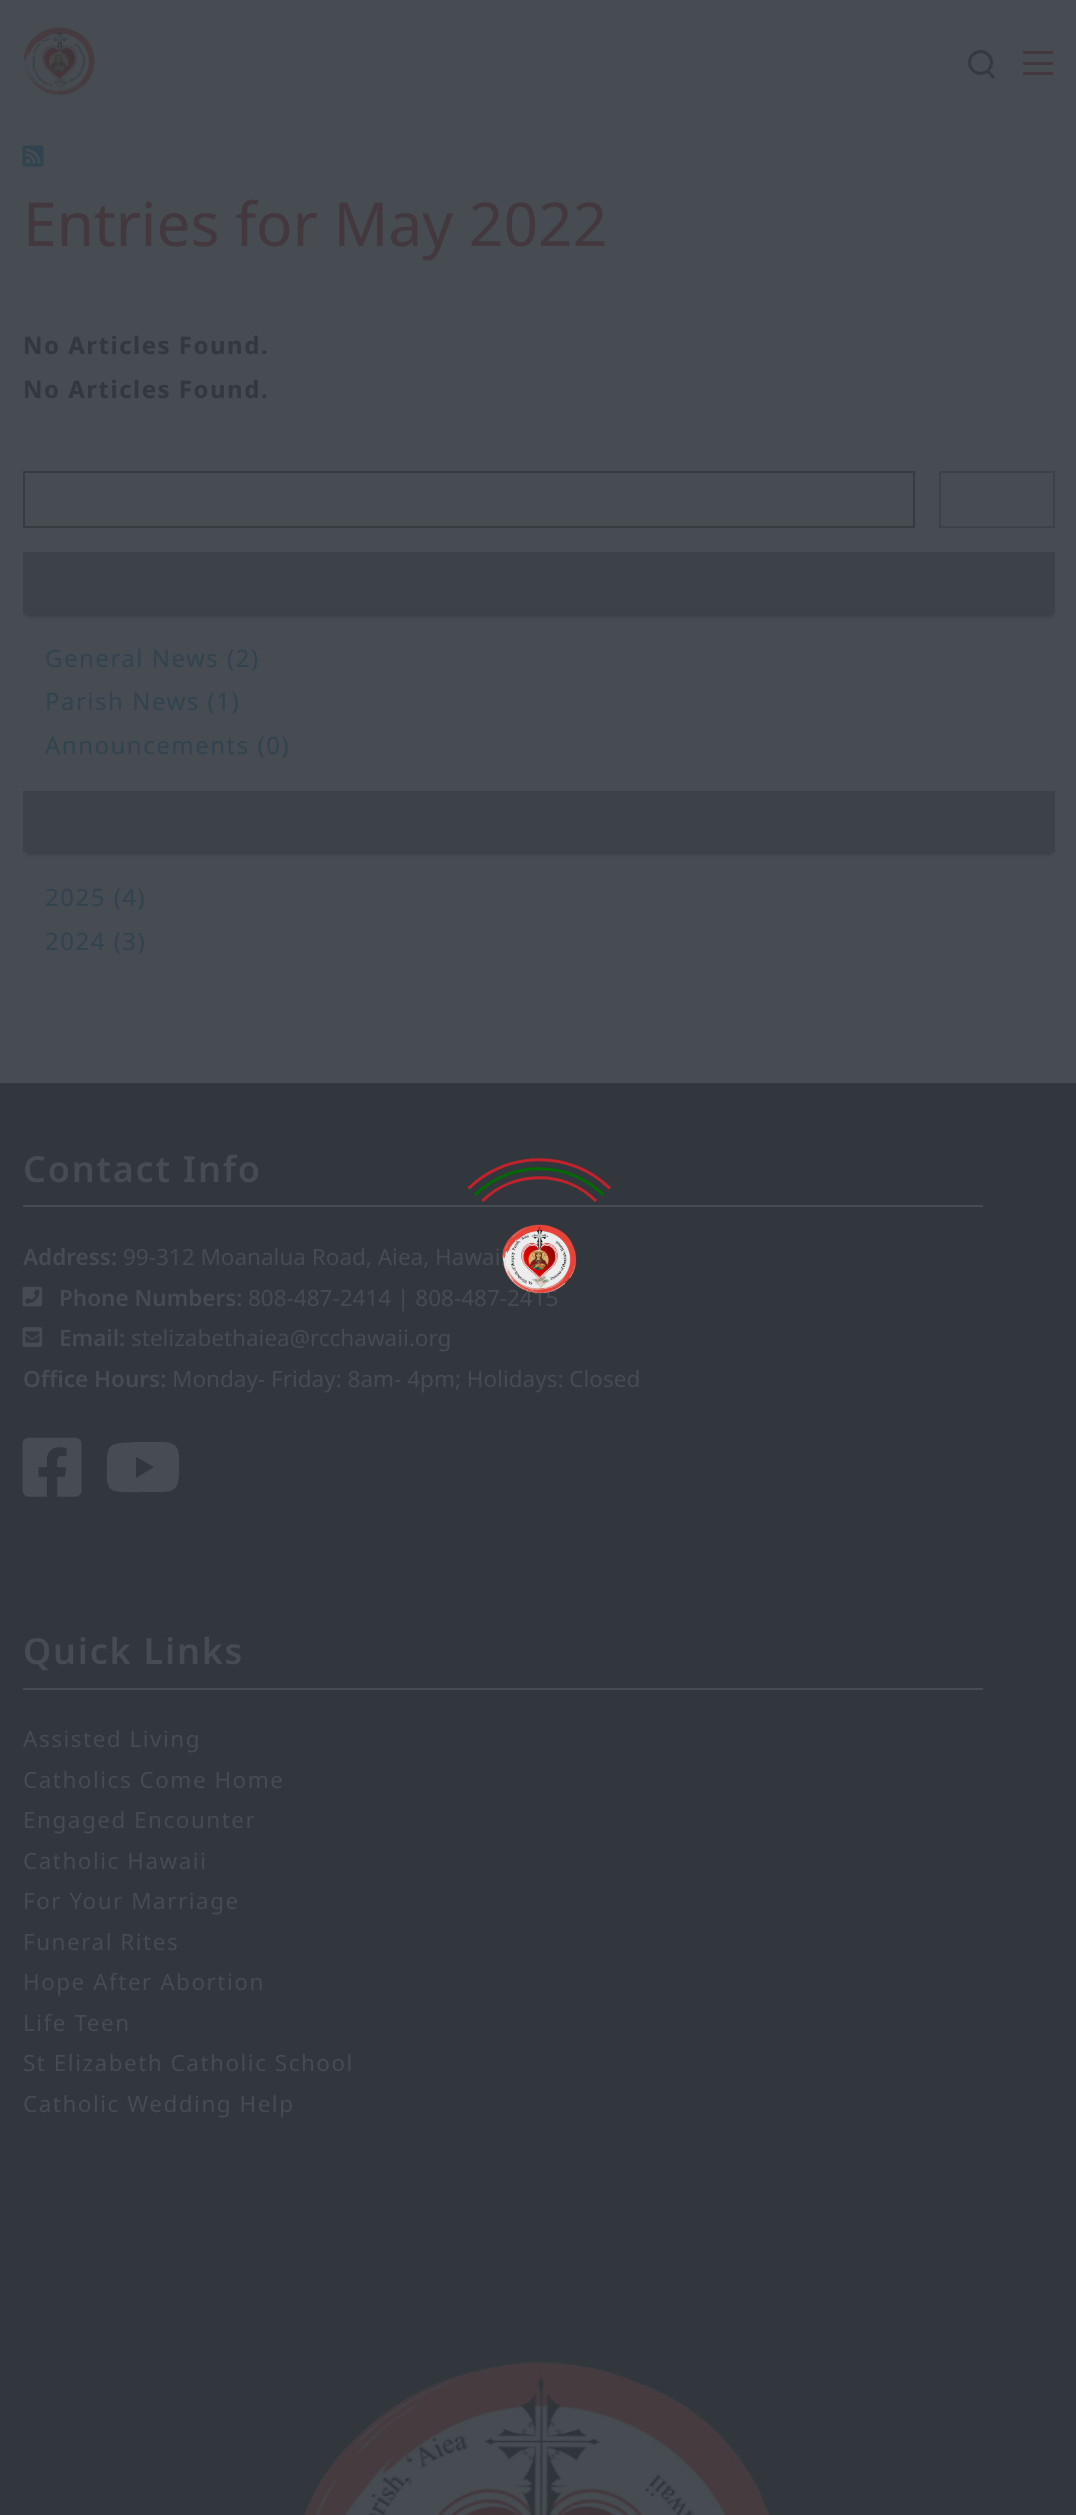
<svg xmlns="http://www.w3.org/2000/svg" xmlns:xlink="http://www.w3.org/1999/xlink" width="1076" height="2515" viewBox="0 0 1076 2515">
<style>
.cls-1{font:60.5px Noto Sans;fill:#42383e}
.cls-2{font:bold 24px Noto Sans;letter-spacing:1.5px;fill:#32383d}
.cls-3{font:24px Noto Sans;letter-spacing:1.5px;fill:#324350}
.cls-4{font:600 36px Noto Sans;letter-spacing:1.75px;fill:#464c51}
.cls-5{font:600 22.5px Noto Sans;fill:#464c51}
.cls-6{font:22.5px Noto Sans;fill:#464c51}
.cls-7{font:22.5px Noto Sans;letter-spacing:1.5px;fill:#464c51}
</style>
<rect width="100%" height="100%" fill="#464c51"/>
<image xlink:href="image0.png" x="23" y="27" width="72" height="69"/>
<path fill="#353a40" d="M988 69L995 77L993 79L986 71.5Z"/>
<circle fill="none" stroke="#353a40" stroke-width="3" cx="980.5" cy="62.5" r="11"/>
<rect fill="#42383e" x="1023" y="51" width="30" height="3"/>
<rect fill="#42383e" x="1023" y="62" width="30" height="3"/>
<rect fill="#42383e" x="1023" y="72" width="30" height="3"/>
<image xlink:href="image1.png" x="22" y="145" width="22" height="22"/>
<rect fill="none" stroke="#363b40" stroke-width="2" x="24" y="472" width="890" height="55"/>
<rect fill="none" stroke="#3c4247" stroke-width="2" x="940" y="472" width="114" height="55"/>
<rect fill="#3b4046" filter="blur(1.5px)" x="26" y="561" width="1026" height="56"/>
<rect fill="#3c4247" x="23" y="552" width="1032" height="62"/>
<rect fill="#3b4046" filter="blur(1.5px)" x="26" y="800" width="1026" height="55"/>
<rect fill="#3c4247" x="23" y="791" width="1032" height="61"/>
<rect fill="#32373d" x="0" y="1083" width="1076" height="1432"/>
<rect fill="#464c51" x="23" y="1205" width="960" height="2"/>
<image xlink:href="image2.png" x="22" y="1286" width="21" height="21"/>
<image xlink:href="image3.png" x="22" y="1327" width="21" height="20"/>
<image xlink:href="image4.png" x="22" y="1437" width="60" height="60"/>
<path fill="#464c51" d="M178 1450C180 1458 179 1467 179 1475C178 1488 176 1491 163 1492H146C138 1492 121 1493 114 1491C111 1490 109 1487 108 1485C106 1478 107 1469 107 1462C107 1451 108 1444 120 1443L136 1442H157C164 1442 175 1441 178 1450ZM136 1478L154 1467L136 1457Z"/>
<rect fill="#464c51" x="23" y="1688" width="960" height="2"/>
<image xlink:href="image5.png" x="303" y="2362" width="467" height="153"/>
<path fill="none" stroke="#c2222c" stroke-width="3" d="M468.5 1188.5C507.5 1150 571 1150 610 1188.5"/>
<path fill="none" stroke="#036903" stroke-width="3" d="M475 1195C510.5 1160 568 1160 603.5 1195"/>
<path fill="none" stroke="#c2222c" stroke-width="3" d="M482.5 1201C513.5 1170 565 1170 596 1201"/>
<text class="cls-1" x="23" y="246">Entries for May 2022</text>
<text class="cls-2"><tspan x="23" y="354">No Articles Found.</tspan><tspan x="23" y="398">No Articles Found.</tspan></text>
<text class="cls-3"><tspan x="45" y="667">General News (2)</tspan><tspan x="45" y="710">Parish News (1)</tspan><tspan x="45" y="754">Announcements (0)</tspan></text>
<text class="cls-3"><tspan x="45" y="906">2025 (4)</tspan><tspan x="45" y="950">2024 (3)</tspan></text>
<text class="cls-4" x="23" y="1182">Contact Info</text>
<text class="cls-5" x="23" y="1265">Address:</text>
<text class="cls-6" x="123" y="1265">99-312 Moanalua Road, Aiea, Hawaii</text>
<text class="cls-5" x="59" y="1306">Phone Numbers:</text>
<text class="cls-6" x="248" y="1306">808-487-2414 | 808-487-2415</text>
<text class="cls-5" x="59" y="1346">Email:</text>
<text class="cls-6" x="131" y="1346">stelizabethaiea@rcchawaii.org</text>
<text class="cls-5" x="23" y="1387">Office Hours:</text>
<text class="cls-6" x="172" y="1387">Monday- Friday: 8am- 4pm; Holidays: Closed</text>
<text class="cls-4" x="23" y="1664">Quick Links</text>
<text class="cls-7"><tspan x="23" y="1747">Assisted Living</tspan><tspan x="23" y="1788">Catholics Come Home</tspan><tspan x="23" y="1828">Engaged Encounter</tspan><tspan x="23" y="1869">Catholic Hawaii</tspan><tspan x="23" y="1909">For Your Marriage</tspan><tspan x="23" y="1950">Funeral Rites</tspan><tspan x="23" y="1990">Hope After Abortion</tspan><tspan x="23" y="2031">Life Teen</tspan><tspan x="23" y="2071">St Elizabeth Catholic School</tspan><tspan x="23" y="2112">Catholic Wedding Help</tspan></text>
<image xlink:href="image6.png" x="502" y="1224" width="75" height="70"/>
</svg>
